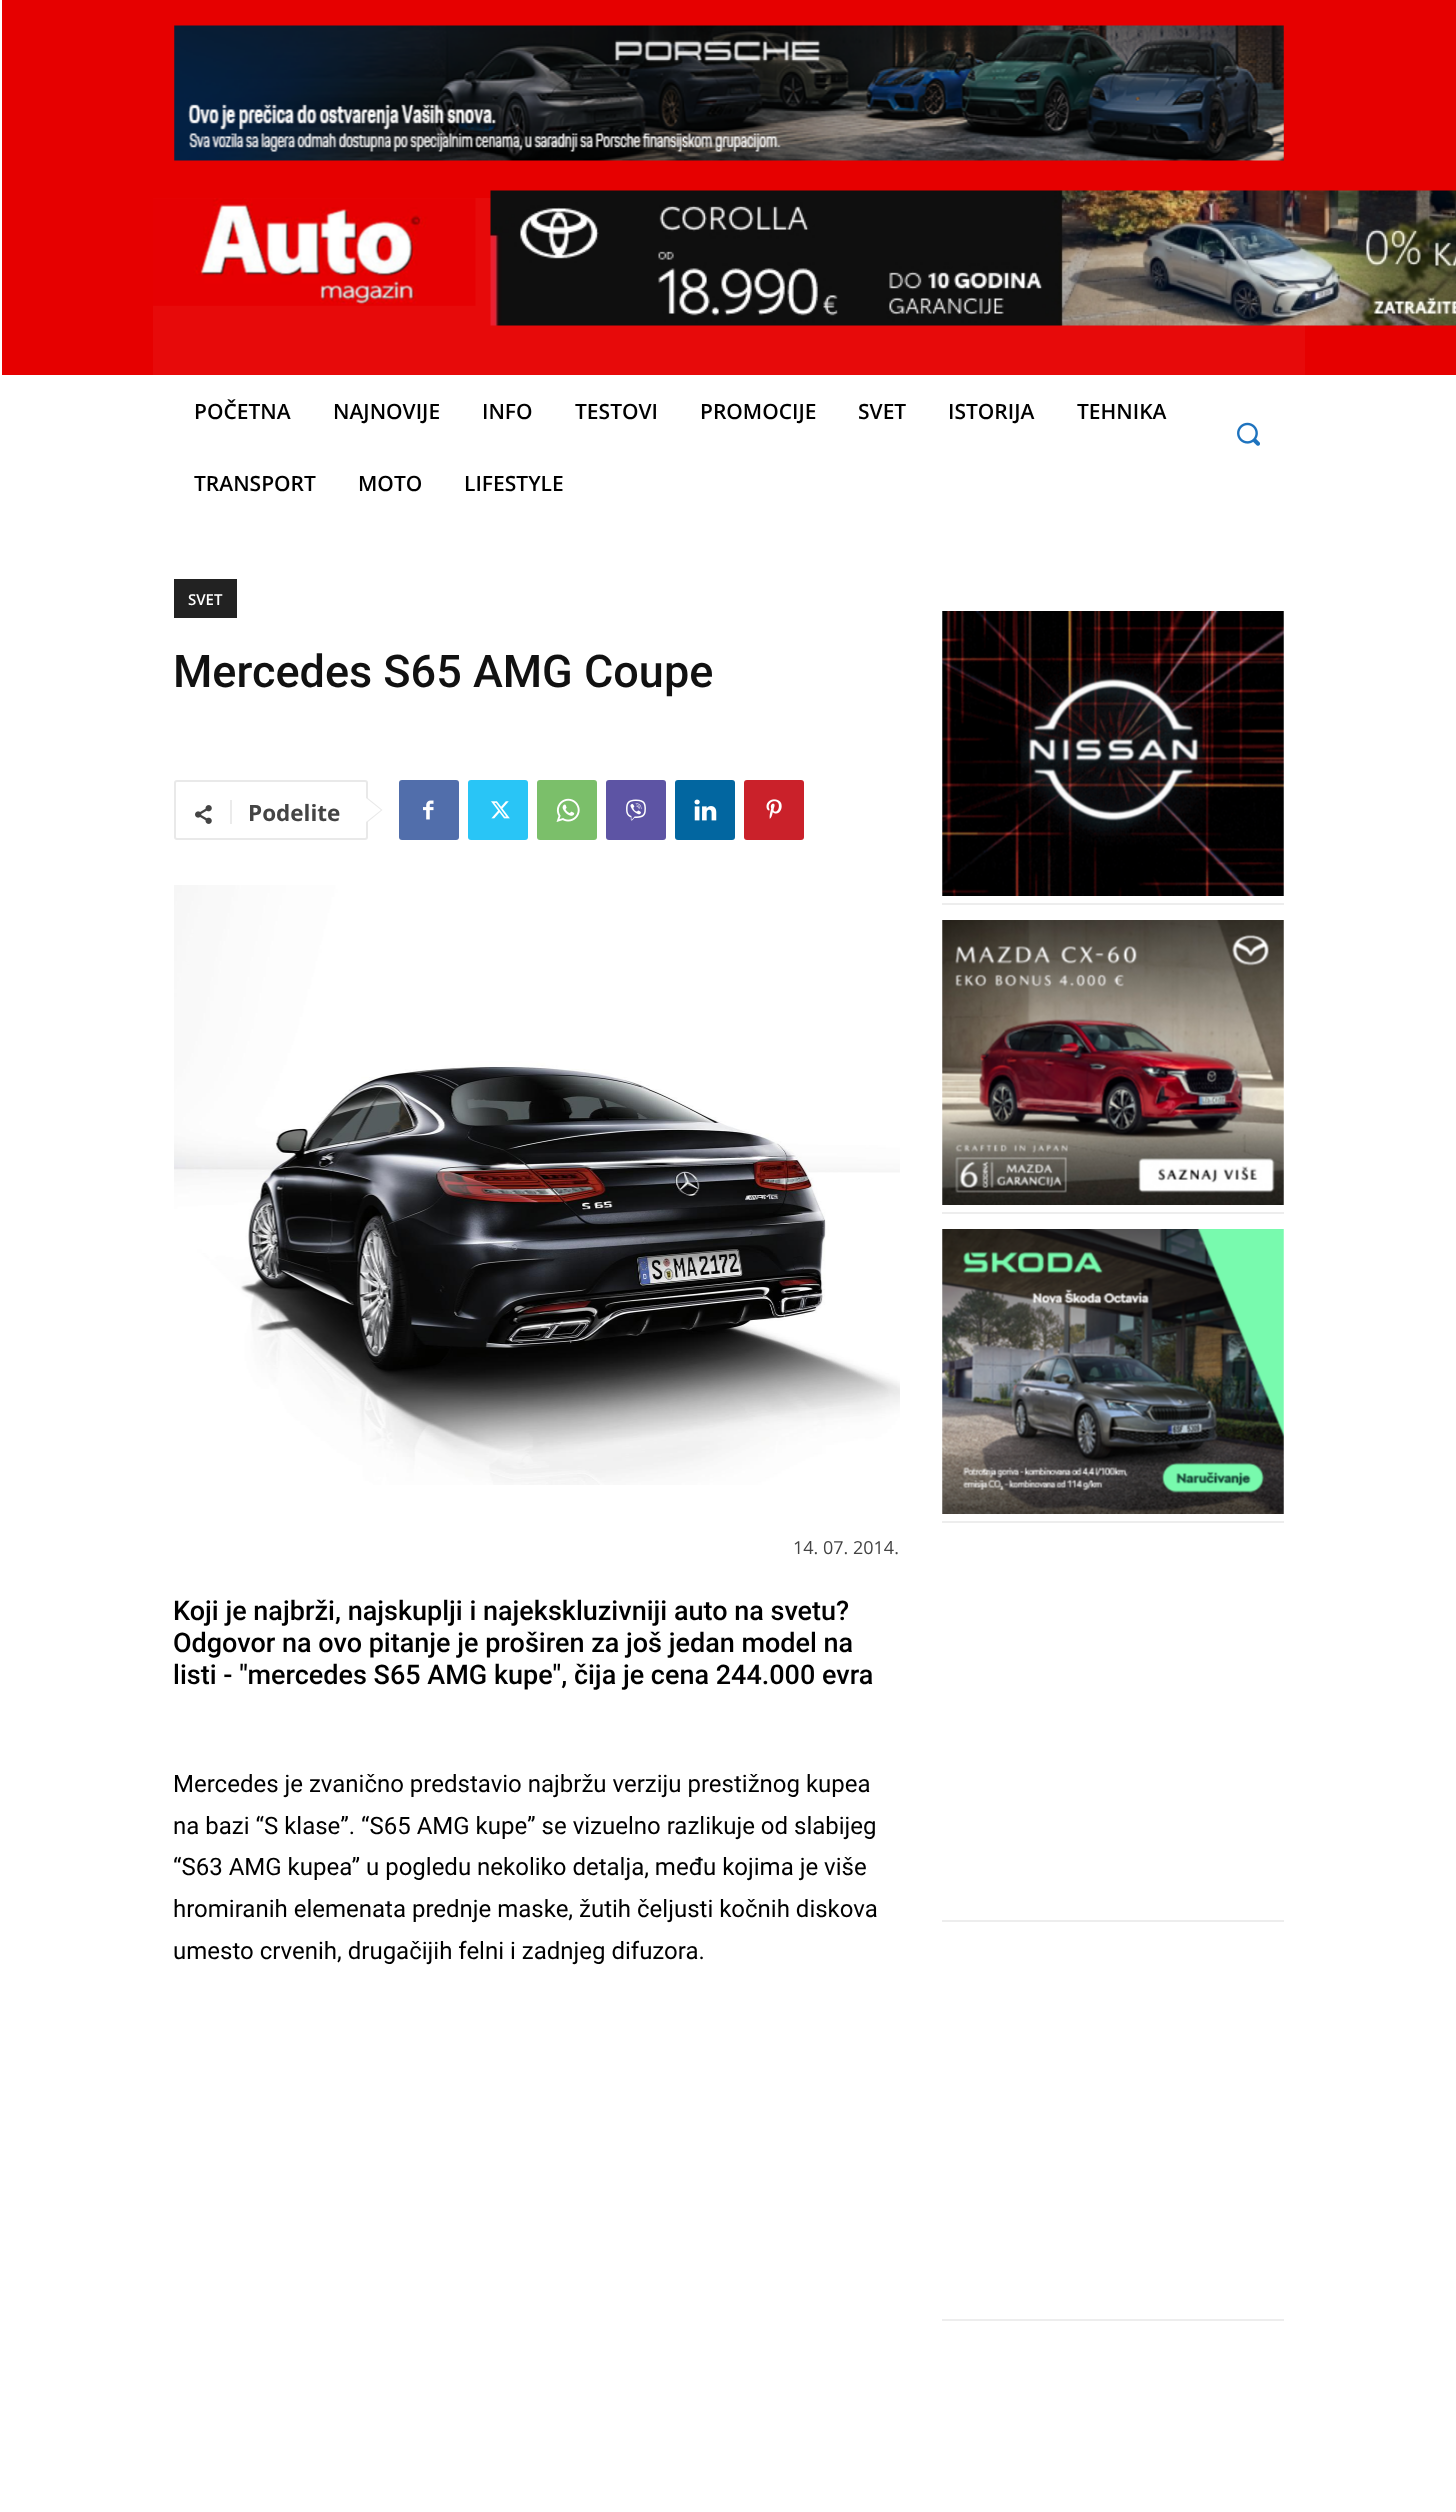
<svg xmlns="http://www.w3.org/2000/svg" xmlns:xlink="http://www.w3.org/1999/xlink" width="1456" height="2512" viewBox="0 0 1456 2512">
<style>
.cls-1{font:600 21px Open Sans;fill:#000000}
.cls-2{font:600 15px Open Sans;fill:#ffffff}
.cls-3{font:500 45px Roboto;fill:#111111}
.cls-4{font:bold 22.5px Open Sans;fill:#444444}
.cls-5{font:18px Open Sans;fill:#444444}
.cls-6{font:500 27px Roboto;fill:#000000}
.cls-7{font:24px Roboto;fill:#000000}
</style>
<rect width="100%" height="100%" fill="#ffffff"/>
<rect fill="#e60000" x="2" y="0" width="1454" height="375"/>
<rect fill="#e70a0a" x="153" y="198" width="1152" height="177"/>
<image xlink:href="image0.png" x="174" y="25" width="1110" height="136"/>
<image xlink:href="image1.png" x="153" y="198" width="323" height="108"/>
<image xlink:href="image2.png" x="490" y="190" width="966" height="136"/>
<image xlink:href="image3.png" x="1237" y="422" width="23" height="24"/>
<rect fill="#222222" x="174" y="579" width="63" height="39"/>
<rect fill="none" stroke="#e9e9e9" stroke-width="2" x="175" y="781" width="192" height="58" rx="2"/>
<path fill="#e9e9e9" d="M366 823.5V796.5L382.5 810Z"/>
<image xlink:href="image4.png" x="195" y="805" width="17" height="19"/>
<rect fill="#ebebeb" x="230" y="800" width="2" height="24"/>
<path fill="#ffffff" d="M366 822V798L381 810Z"/>
<rect fill="#516eab" x="399" y="780" width="60" height="60" rx="3"/>
<image xlink:href="image5.png" x="423" y="800" width="11" height="20"/>
<rect fill="#29c5f6" x="468" y="780" width="60" height="60" rx="3"/>
<image xlink:href="image6.png" x="491" y="801" width="19" height="18"/>
<rect fill="#7bbf6a" x="537" y="780" width="60" height="60" rx="3"/>
<image xlink:href="image7.png" x="556" y="798" width="24" height="24"/>
<rect fill="#5d54a4" x="606" y="780" width="60" height="60" rx="3"/>
<image xlink:href="image8.png" x="626" y="799" width="20" height="22"/>
<rect fill="#0266a0" x="675" y="780" width="60" height="60" rx="3"/>
<image xlink:href="image9.png" x="694" y="799" width="23" height="22"/>
<rect fill="#ca212a" x="744" y="780" width="60" height="60" rx="3"/>
<image xlink:href="image10.png" x="766" y="799" width="16" height="20"/>
<image xlink:href="image11.png" x="174" y="885" width="726" height="600"/>
<rect fill="#ededed" x="942" y="903" width="342" height="2"/>
<image xlink:href="image12.png" x="942" y="611" width="342" height="285"/>
<rect fill="#ededed" x="942" y="1212" width="342" height="2"/>
<image xlink:href="image13.png" x="942" y="920" width="342" height="285"/>
<rect fill="#ededed" x="942" y="1521" width="342" height="2"/>
<image xlink:href="image14.png" x="942" y="1229" width="342" height="285"/>
<rect fill="#ededed" x="942" y="1920" width="342" height="2"/>
<rect fill="#ededed" x="942" y="2319" width="342" height="2"/>
<text class="cls-1" x="194" y="419">POČETNA</text>
<text class="cls-1" x="333" y="419">NAJNOVIJE</text>
<text class="cls-1" x="482" y="419">INFO</text>
<text class="cls-1" x="575" y="419">TESTOVI</text>
<text class="cls-1" x="700" y="419">PROMOCIJE</text>
<text class="cls-1" x="858" y="419">SVET</text>
<text class="cls-1" x="948" y="419">ISTORIJA</text>
<text class="cls-1" x="1077" y="419">TEHNIKA</text>
<text class="cls-1" x="194" y="491">TRANSPORT</text>
<text class="cls-1" x="358" y="491">MOTO</text>
<text class="cls-1" x="464" y="491">LIFESTYLE</text>
<text class="cls-2" x="188" y="605">SVET</text>
<text class="cls-3" x="173" y="687">Mercedes S65 AMG Coupe</text>
<text class="cls-4" x="248" y="821">Podelite</text>
<text class="cls-5" x="793" y="1554">14. 07. 2014.</text>
<text class="cls-6"><tspan x="173" y="1620">Koji je najbrži, najskuplji i najekskluzivniji auto na svetu?</tspan><tspan x="173" y="1652">Odgovor na ovo pitanje je proširen za još jedan model na</tspan><tspan x="173" y="1684">listi - "mercedes S65 AMG kupe", čija je cena 244.000 evra</tspan></text>
<text class="cls-7"><tspan x="173" y="1792">Mercedes je zvanično predstavio najbržu verziju prestižnog kupea</tspan><tspan x="173" y="1834">na bazi “S klase”. “S65 AMG kupe” se vizuelno razlikuje od slabijeg</tspan><tspan x="173" y="1875">“S63 AMG kupea” u pogledu nekoliko detalja, među kojima je više</tspan><tspan x="173" y="1917">hromiranih elemenata prednje maske, žutih čeljusti kočnih diskova</tspan><tspan x="173" y="1959">umesto crvenih, drugačijih felni i zadnjeg difuzora.</tspan></text>
</svg>
